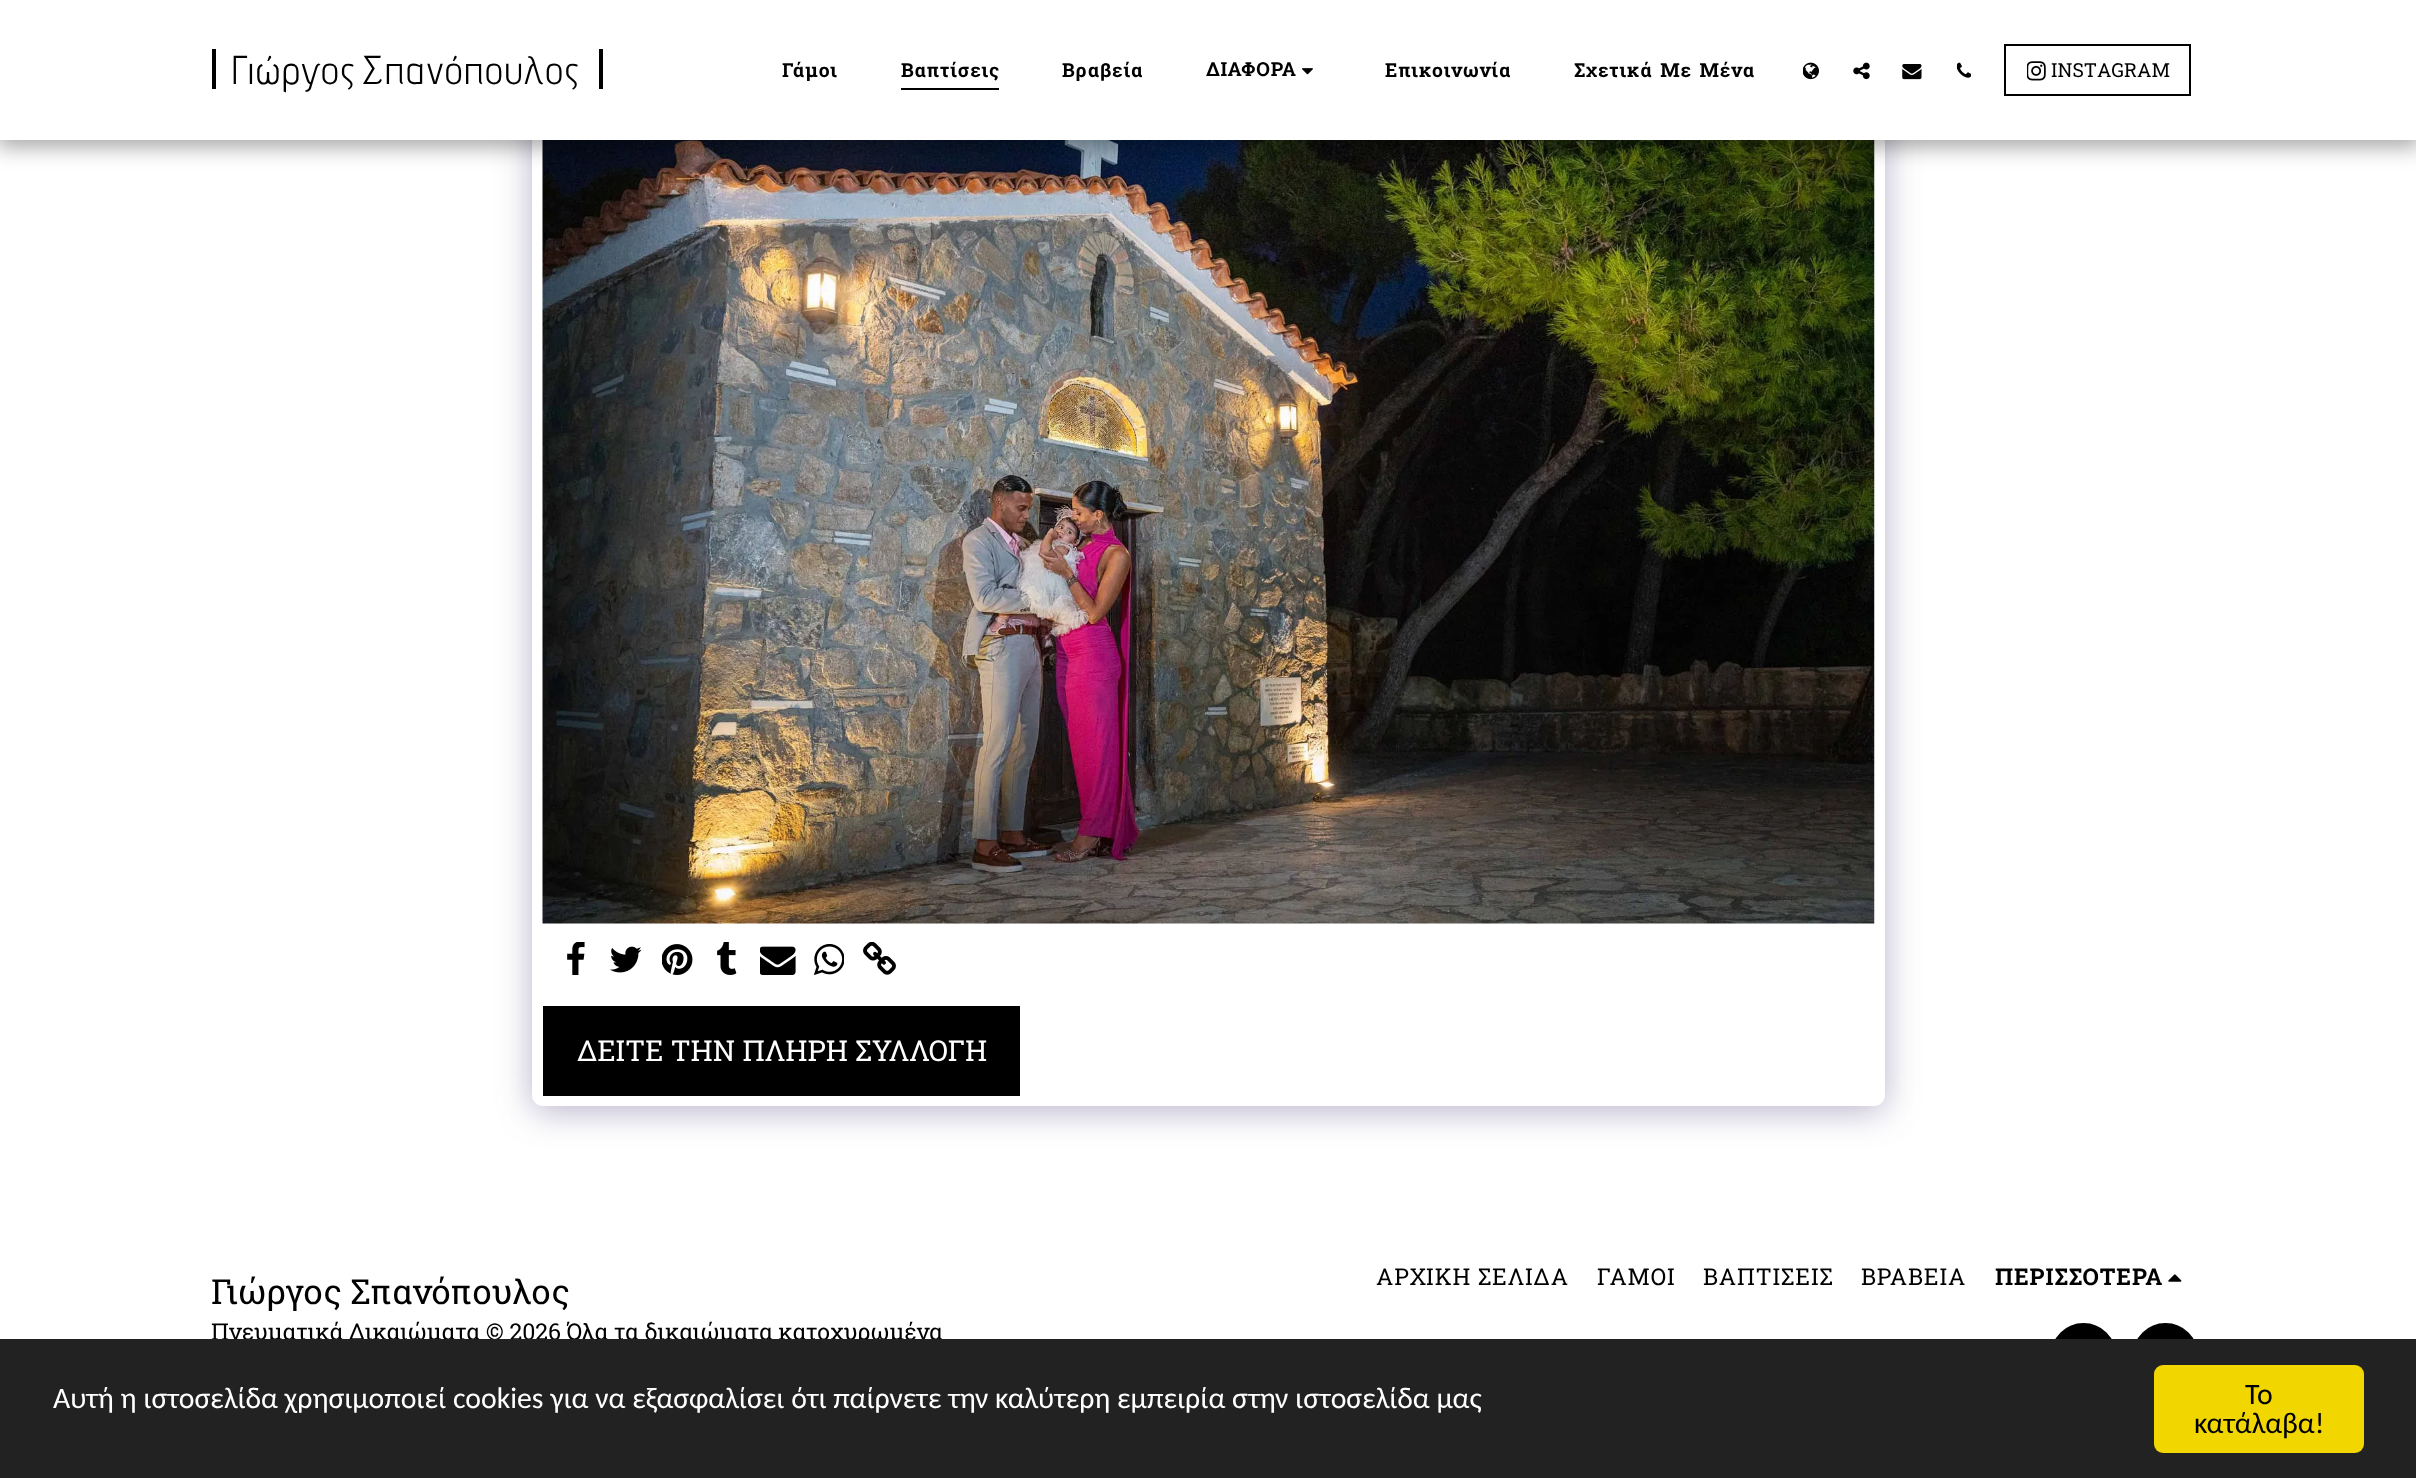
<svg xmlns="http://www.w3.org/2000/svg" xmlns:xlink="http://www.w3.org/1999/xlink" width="2416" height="1478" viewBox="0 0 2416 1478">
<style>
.cls-1{font:40.25px Advent Pro;letter-spacing:1.75px;fill:#000000}
.cls-2{font:bold 19.25px Roboto Slab;letter-spacing:0.9px;fill:#000000}
.cls-3{font:19.25px Roboto Slab;fill:#000000}
.cls-4{font:28.9px Roboto Slab;fill:#ffffff}
.cls-5{font:34.6px Roboto Slab;fill:#000000}
.cls-6{font:23.1px Roboto Slab;fill:#000000}
.cls-7{font:23.1px Roboto Slab;letter-spacing:0.9px;fill:#000000}
.cls-8{font:bold 23.1px Roboto Slab;letter-spacing:0.9px;fill:#000000}
.cls-9{font:29.75px Carlito;fill:#ffffff}
.cls-10{font:29.75px Carlito;fill:#000000}
</style>
<rect width="100%" height="100%" fill="#ffffff"/>
<rect fill="#4d3f7a" fill-opacity="0.4" filter="blur(17.5px)" x="532" y="32" width="1353" height="1079" rx="11"/>
<rect fill="#ffffff" x="532" y="26" width="1353" height="1080" rx="11"/>
<image xlink:href="image6.png" x="542" y="140" width="1333" height="784"/>
<rect fill="#000000" fill-opacity="0.35" filter="blur(10.5px)" x="-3" y="0" width="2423" height="147"/>
<rect fill="#ffffff" x="0" y="0" width="2416" height="140"/>
<rect fill="#000000" x="599" y="49" width="4" height="40"/>
<rect fill="#000000" x="212" y="49" width="4" height="40"/>
<rect fill="#000000" x="901" y="88" width="98" height="2"/>
<image xlink:href="image0.png" x="1302" y="68" width="11" height="7"/>
<image xlink:href="image1.png" x="1803" y="62" width="16" height="18"/>
<image xlink:href="image2.png" x="1853" y="62" width="17" height="18"/>
<image xlink:href="image3.png" x="1902" y="64" width="20" height="16"/>
<image xlink:href="image4.png" x="1957" y="62" width="14" height="16"/>
<rect fill="none" stroke="#000000" stroke-width="2" x="2005" y="45" width="185" height="50"/>
<image xlink:href="image5.png" x="2027" y="61" width="19" height="20"/>
<image xlink:href="image7.png" x="567" y="942" width="18" height="33"/>
<image xlink:href="image8.png" x="610" y="946" width="32" height="27"/>
<image xlink:href="image9.png" x="662" y="944" width="31" height="31"/>
<image xlink:href="image10.png" x="717" y="942" width="20" height="33"/>
<image xlink:href="image11.png" x="760" y="946" width="36" height="29"/>
<image xlink:href="image12.png" x="814" y="944" width="30" height="31"/>
<image xlink:href="image13.png" x="863" y="942" width="33" height="33"/>
<rect fill="#000000" x="543" y="1006" width="477" height="90"/>
<image xlink:href="image14.png" x="2168" y="1274" width="14" height="8"/>
<circle fill="#000000" stroke="#000000" stroke-width="2" cx="2083.5" cy="1355.5" r="31.5"/>
<circle fill="#000000" stroke="#000000" stroke-width="2" cx="2165.5" cy="1355.5" r="31.5"/>
<text class="cls-1" x="232" y="84">Γιώργος</text>
<text class="cls-1" x="362" y="84">Σπανόπουλος</text>
<text class="cls-2" x="782" y="77">Γάμοι</text>
<text class="cls-2" x="901" y="77">Βαπτίσεις</text>
<text class="cls-2" x="1062" y="77">Βραβεία</text>
<text class="cls-2" x="1206" y="76">ΔΙΑΦΟΡΑ</text>
<text class="cls-2" x="1385" y="77">Επικοινωνία</text>
<text class="cls-2" x="1574" y="77" word-spacing="2">Σχετικά Με Μένα</text>
<text class="cls-3" x="2051" y="77">INSTAGRAM</text>
<text class="cls-4" x="577" y="1061">ΔΕΙΤΕ ΤΗΝ ΠΛΗΡΗ ΣΥΛΛΟΓΗ</text>
<text class="cls-5" x="211" y="1304">Γιώργος Σπανόπουλος</text>
<text class="cls-6" x="211" y="1340">Πνευματικά Δικαιώματα © 2026 Όλα τα δικαιώματα κατοχυρωμένα</text>
<text class="cls-7" x="1376" y="1285">ΑΡΧΙΚΗ ΣΕΛΙΔΑ</text>
<text class="cls-7" x="1597" y="1285">ΓΑΜΟΙ</text>
<text class="cls-7" x="1703" y="1285">ΒΑΠΤΙΣΕΙΣ</text>
<text class="cls-7" x="1861" y="1285">ΒΡΑΒΕΙΑ</text>
<text class="cls-8" x="1995" y="1285">ΠΕΡΙΣΣΟΤΕΡΑ</text>
<rect fill="#222222" x="0" y="1339" width="2416" height="139"/>
<text class="cls-9" x="53" y="1408">Αυτή η ιστοσελίδα χρησιμοποιεί cookies για να εξασφαλίσει ότι παίρνετε την καλύτερη εμπειρία στην ιστοσελίδα μας</text>
<rect fill="#f1d600" x="2154" y="1365" width="210" height="88" rx="9"/>
<text class="cls-10" x="2245" y="1404">Το</text>
<text class="cls-10" x="2194" y="1433">κατάλαβα!</text>
</svg>
